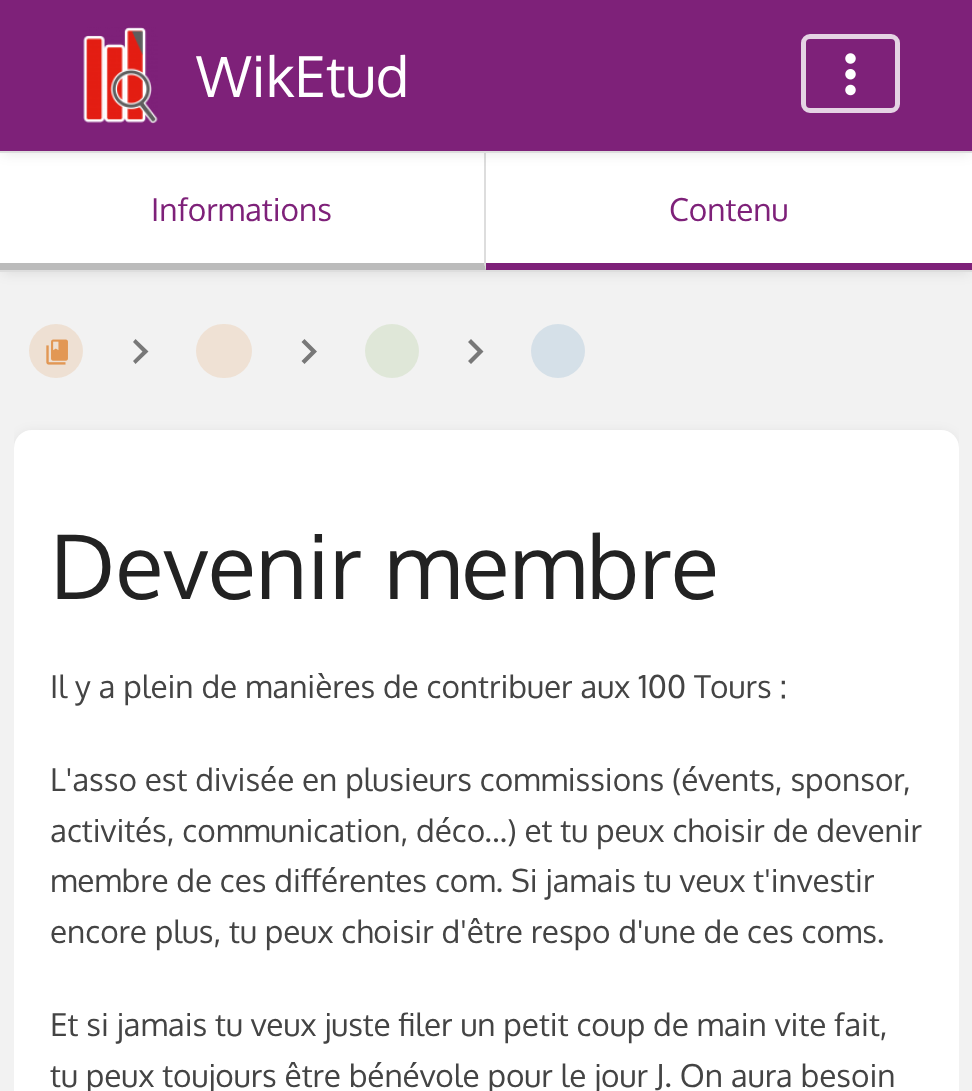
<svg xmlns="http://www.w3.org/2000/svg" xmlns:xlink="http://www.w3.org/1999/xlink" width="972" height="1091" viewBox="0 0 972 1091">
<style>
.cls-1{font:56.5px Oxygen;fill:#ffffff}
.cls-2{font:31.5px Oxygen;fill:#7e2179}
.cls-3{font:89px Oxygen;fill:#222222}
.cls-4{font:31.5px Oxygen;fill:#444444}
</style>
<defs>
<clipPath id="clip1"><rect x="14" y="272" width="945" height="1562"/></clipPath>
</defs>
<rect width="100%" height="100%" fill="#f2f2f2"/>
<rect fill="#000000" fill-opacity="0.1" filter="blur(7px)" x="2" y="158" width="968" height="114"/>
<rect fill="#ffffff" x="0" y="153" width="972" height="117"/>
<path fill="#dddddd" d="M486 153V270L484 263V153Z"/>
<rect fill="#000000" fill-opacity="0.1" filter="blur(7px)" x="2" y="5" width="968" height="148"/>
<rect fill="#7e2179" x="0" y="0" width="972" height="151"/>
<rect fill="#dddddd" x="0" y="151" width="972" height="2"/>
<image xlink:href="image0.png" x="83" y="27" width="75" height="97"/>
<rect fill="none" stroke="#e5d3e4" stroke-width="5" x="803.5" y="36.5" width="94" height="74" rx="6.5"/>
<image xlink:href="image1.png" x="845" y="53" width="11" height="43"/>
<rect fill="#dddddd" x="0" y="270" width="972" height="2"/>
<path fill="#bbbbbb" d="M486 270H0V263H484Z"/>
<rect fill="#7e2179" x="486" y="263" width="486" height="7"/>
<image xlink:href="image2.png" x="46" y="339" width="22" height="26"/>
<circle fill="#dc781e" fill-opacity="0.14" cx="56" cy="351" r="27"/>
<path fill="#787878" d="M135.5 339L133 342L142.5 351.5L133 361L135.5 364L148.5 351.5Z"/>
<rect fill="#efe1d4" x="196" y="324" width="56" height="54" rx="27"/>
<path fill="#787878" d="M304.5 339L301.5 342L311 351.5L301.5 361L304.5 364L317 351.5Z"/>
<circle fill="#dfe7d8" cx="392" cy="351" r="27"/>
<path fill="#787878" d="M471 339L468 342L477.5 351.5L468 361L471 364L483.5 351.5Z"/>
<circle fill="#d5e0e8" cx="558" cy="351" r="27"/>
<g clip-path="url(#clip1)">
<rect fill="#000000" fill-opacity="0.1" filter="blur(7px)" x="16" y="434" width="940" height="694" rx="16"/>
</g>
<rect fill="#ffffff" x="14" y="430" width="945" height="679" rx="18"/>
<text class="cls-1" x="196" y="97">WikEtud</text>
<text class="cls-2" x="151" y="221">Informations</text>
<text class="cls-2" x="669" y="221">Contenu</text>
<text class="cls-3" x="50" y="599">Devenir membre</text>
<text class="cls-4" x="50" y="698">Il y a plein de manières de contribuer aux 100 Tours :</text>
<text class="cls-4"><tspan x="50" y="791">L'asso est divisée en plusieurs commissions (évents, sponsor,</tspan><tspan x="50" y="842">activités, communication, déco...) et tu peux choisir de devenir</tspan><tspan x="50" y="892">membre de ces différentes com. Si jamais tu veux t'investir</tspan><tspan x="50" y="943">encore plus, tu peux choisir d'être respo d'une de ces coms.</tspan></text>
<text class="cls-4"><tspan x="50" y="1036">Et si jamais tu veux juste filer un petit coup de main vite fait,</tspan><tspan x="50" y="1087">tu peux toujours être bénévole pour le jour J. On aura besoin</tspan></text>
</svg>
